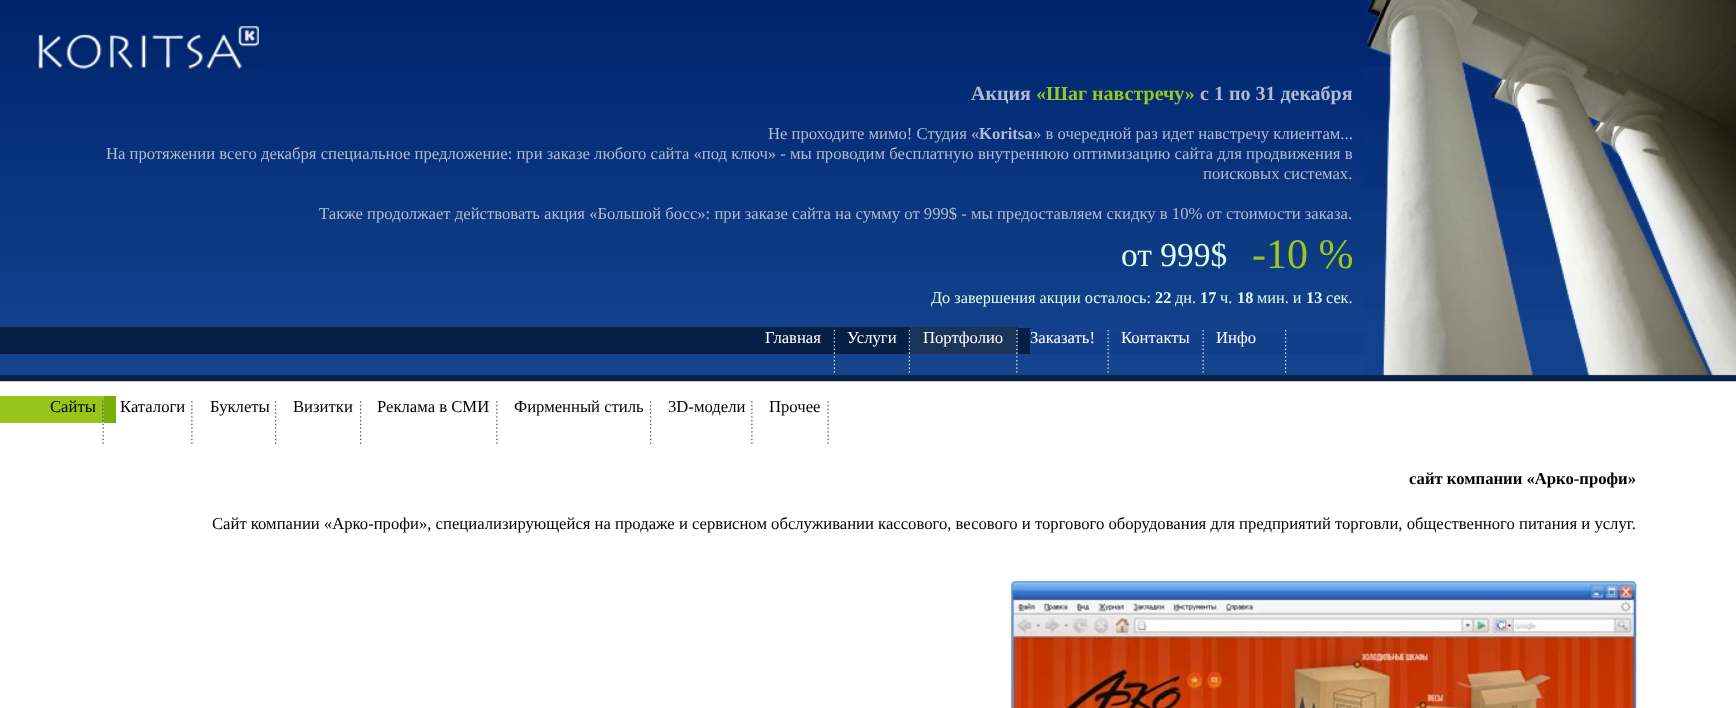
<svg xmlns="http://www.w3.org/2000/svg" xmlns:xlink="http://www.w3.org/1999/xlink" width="1736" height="708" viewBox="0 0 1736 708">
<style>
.cls-1{font:bold 20px Liberation Serif;fill:#b0bbd2}
.cls-2{font:bold 20px Liberation Serif;fill:#96c81e}
.cls-3{font:16.67px Liberation Serif;fill:#b0bbd2}
.cls-4{font:bold 16.67px Liberation Serif;fill:#b0bbd2}
.cls-5{font:33.5px Liberation Serif;fill:#dcffeb}
.cls-6{font:42px Liberation Serif;fill:#96c81e}
.cls-7{font:16.25px Liberation Serif;fill:#dcffeb}
.cls-8{font:bold 16.25px Liberation Serif;fill:#dcffeb}
.cls-9{font:16.67px Liberation Serif;fill:#ffffff}
.cls-10{font:16.67px Liberation Serif;fill:#000000}
.cls-11{font:bold 16.67px Liberation Serif;fill:#000000}
</style>
<rect width="100%" height="100%" fill="#ffffff"/>
<image xlink:href="image0.png" x="0" y="0" width="1365" height="382"/>
<image xlink:href="image1.png" x="38" y="26" width="221" height="43"/>
<rect fill="#081f45" x="0" y="327" width="834" height="27"/>
<rect fill="#113f89" x="834" y="332" width="531" height="22"/>
<image xlink:href="image2.png" x="833" y="327" width="2" height="46"/>
<rect fill="#081f45" x="835" y="327" width="74" height="27"/>
<image xlink:href="image2.png" x="908" y="327" width="2" height="46"/>
<rect fill="#1c3358" x="910" y="327" width="107" height="27"/>
<image xlink:href="image3.png" x="1016" y="327" width="2" height="46"/>
<rect fill="#081f45" x="1018" y="328" width="12" height="26"/>
<image xlink:href="image4.png" x="1107" y="329" width="2" height="44"/>
<image xlink:href="image4.png" x="1202" y="329" width="2" height="44"/>
<image xlink:href="image5.png" x="1285" y="329" width="2" height="44"/>
<image xlink:href="image6.png" x="1365" y="0" width="371" height="382"/>
<rect fill="#97c51c" x="0" y="396" width="103" height="27"/>
<image xlink:href="image7.png" x="102" y="396" width="2" height="48"/>
<rect fill="#7aaf09" x="104" y="396" width="12" height="27"/>
<image xlink:href="image8.png" x="191" y="401" width="2" height="43"/>
<image xlink:href="image9.png" x="275" y="401" width="2" height="43"/>
<image xlink:href="image9.png" x="360" y="401" width="2" height="43"/>
<image xlink:href="image8.png" x="496" y="401" width="2" height="43"/>
<image xlink:href="image9.png" x="650" y="401" width="2" height="43"/>
<image xlink:href="image8.png" x="751" y="401" width="2" height="43"/>
<image xlink:href="image10.png" x="827" y="401" width="2" height="43"/>
<image xlink:href="image11.png" x="1011" y="581" width="626" height="127"/>
<text class="cls-1" x="971" y="100">Акция</text>
<text class="cls-2" x="1036" y="100">«Шаг навстречу»</text>
<text class="cls-1" x="1200" y="100">с 1 по 31 декабря</text>
<text class="cls-3" x="768" y="139">Не проходите мимо! Студия «</text>
<text class="cls-4" x="979" y="139">Koritsa</text>
<text class="cls-3" x="1033" y="139">» в очередной раз идет навстречу клиентам...</text>
<text class="cls-3" x="106" y="159">На протяжении всего декабря специальное предложение: при заказе любого сайта «под ключ» - мы проводим бесплатную внутреннюю оптимизацию сайта для продвижения в</text>
<text class="cls-3" x="1203" y="179">поисковых системах.</text>
<text class="cls-3" x="319" y="219">Также продолжает действовать акция «Большой босс»: при заказе сайта на сумму от 999$ - мы предоставляем скидку в 10% от стоимости заказа.</text>
<text class="cls-5" x="1121" y="266">от 999$</text>
<text class="cls-6" x="1252" y="268">-10 %</text>
<text class="cls-7" x="931" y="303">До завершения акции осталось:</text>
<text class="cls-8" x="1155" y="303">22</text>
<text class="cls-7" x="1175" y="303">дн.</text>
<text class="cls-8" x="1200" y="303">17</text>
<text class="cls-7" x="1220" y="303">ч.</text>
<text class="cls-8" x="1237" y="303">18</text>
<text class="cls-7" x="1257" y="303">мин. и</text>
<text class="cls-8" x="1306" y="303">13</text>
<text class="cls-7" x="1326" y="303">сек.</text>
<text class="cls-9" x="765" y="343">Главная</text>
<text class="cls-9" x="847" y="343">Услуги</text>
<text class="cls-9" x="923" y="343">Портфолио</text>
<text class="cls-9" x="1030" y="343">Заказать!</text>
<text class="cls-9" x="1121" y="343">Контакты</text>
<text class="cls-9" x="1216" y="343">Инфо</text>
<text class="cls-10" x="50" y="412">Сайты</text>
<text class="cls-10" x="120" y="412">Каталоги</text>
<text class="cls-10" x="210" y="412">Буклеты</text>
<text class="cls-10" x="293" y="412">Визитки</text>
<text class="cls-10" x="377" y="412">Реклама в СМИ</text>
<text class="cls-10" x="514" y="412">Фирменный стиль</text>
<text class="cls-10" x="668" y="412">3D-модели</text>
<text class="cls-10" x="769" y="412">Прочее</text>
<text class="cls-11" x="1409" y="484">сайт компании «Арко-профи»</text>
<text class="cls-10" x="212" y="529">Сайт компании «Арко-профи», специализирующейся на продаже и сервисном обслуживании кассового, весового и торгового оборудования для предприятий торговли, общественного питания и услуг.</text>
</svg>
